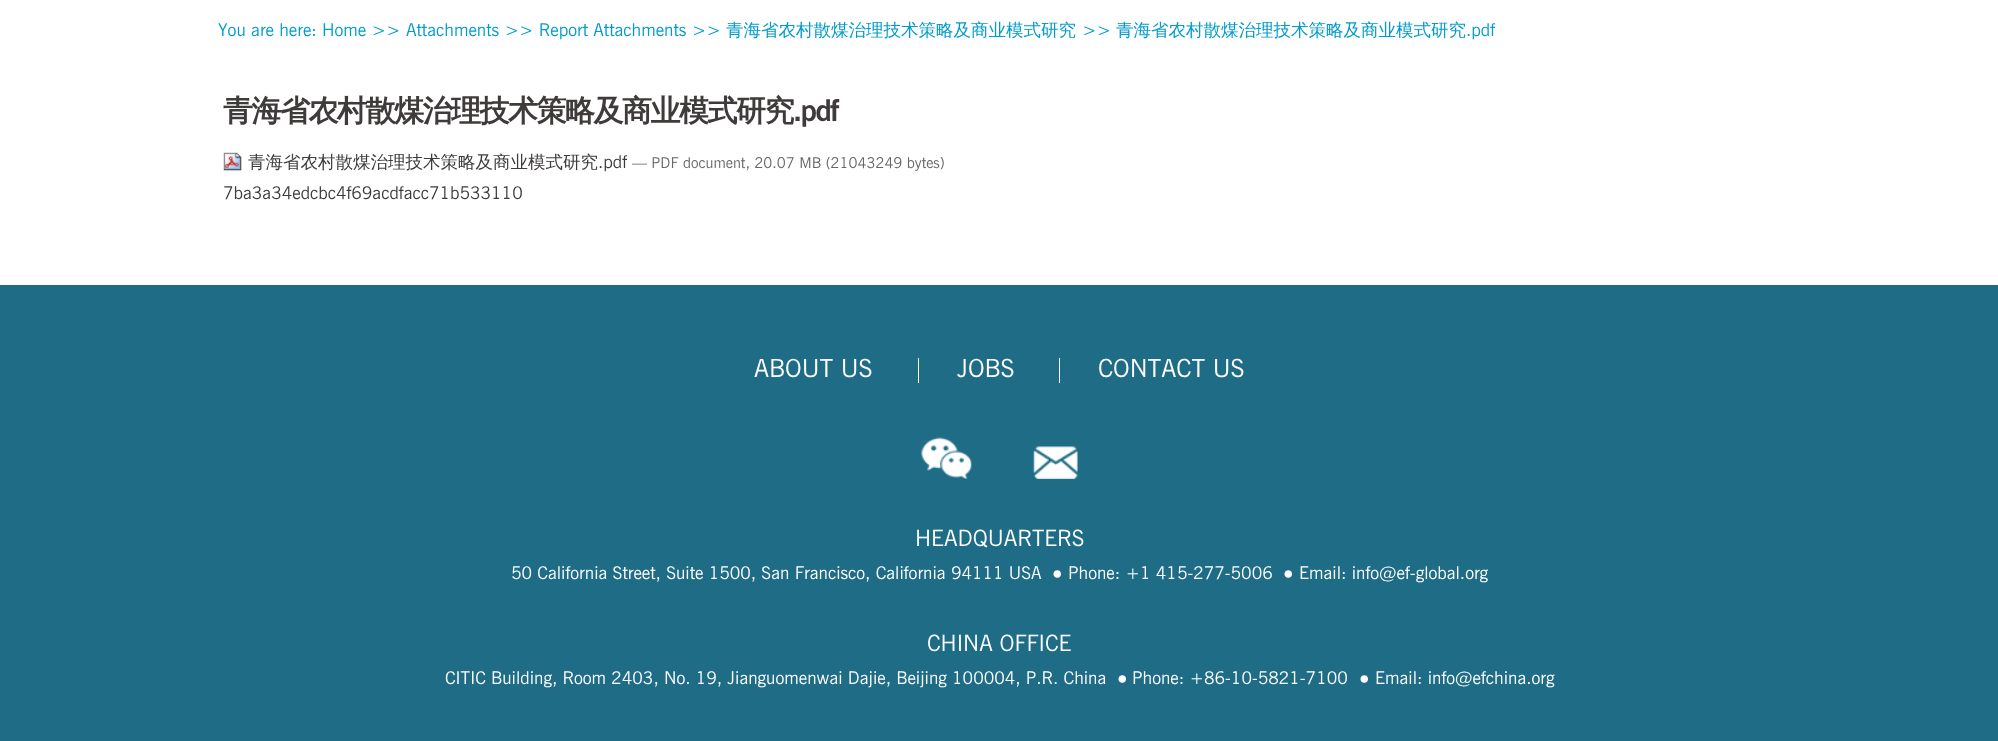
<svg xmlns="http://www.w3.org/2000/svg" xmlns:xlink="http://www.w3.org/1999/xlink" width="1998" height="741" viewBox="0 0 1998 741">
<style>
.cls-1{font:17.5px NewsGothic;fill:#009ccc}
.cls-2{font:500 17.5px WenQuanYi Zen Hei;fill:#009ccc}
.cls-3{font:bold 30px WenQuanYi Zen Hei;letter-spacing:-1.5px;fill:#3f3b3b}
.cls-4{font:bold 30px NewsGothic;letter-spacing:-1.5px;fill:#3f3b3b}
.cls-5{font:500 17.5px WenQuanYi Zen Hei;fill:#3f3b3b}
.cls-6{font:17.5px NewsGothic;fill:#3f3b3b}
.cls-7{font:14.9px NewsGothic;fill:#666666}
.cls-8{font:25px NewsGothic;fill:#ffffff}
.cls-9{font:22.5px NewsGothic;fill:#ffffff}
.cls-10{font:17.5px NewsGothic;fill:#ffffff}
.cls-11{font:17.5px Liberation Sans;fill:#ffffff}
</style>
<rect width="100%" height="100%" fill="#ffffff"/>
<image xlink:href="image0.png" x="223" y="152" width="19" height="19"/>
<rect fill="#1f6c86" x="0" y="285" width="1998" height="456"/>
<rect fill="#ffffff" x="918" y="358" width="1" height="25"/>
<rect fill="#ffffff" x="1059" y="358" width="1" height="25"/>
<image xlink:href="image1.png" x="921" y="437" width="51" height="42"/>
<image xlink:href="image2.png" x="1033" y="446" width="45" height="33"/>
<text class="cls-1" x="218" y="36">You are here: Home &gt;&gt; Attachments &gt;&gt; Report Attachments &gt;&gt;</text>
<text class="cls-2" x="726" y="36">青海省农村散煤治理技术策略及商业模式研究</text>
<text class="cls-1" x="1082" y="36">&gt;&gt;</text>
<text class="cls-2" x="1116" y="36">青海省农村散煤治理技术策略及商业模式研究</text>
<text class="cls-1" x="1466" y="36">.pdf</text>
<text class="cls-3" x="223" y="121">青海省农村散煤治理技术策略及商业模式研究</text>
<text class="cls-4" x="793" y="121">.pdf</text>
<text class="cls-5" x="248" y="168">青海省农村散煤治理技术策略及商业模式研究</text>
<text class="cls-6" x="598" y="168">.pdf</text>
<text class="cls-7" x="632" y="168">— PDF document, 20.07 MB (21043249 bytes)</text>
<text class="cls-6" x="223" y="199">7ba3a34edcbc4f69acdfacc71b533110</text>
<text class="cls-8" x="754" y="377">ABOUT US</text>
<text class="cls-8" x="957" y="377">JOBS</text>
<text class="cls-8" x="1098" y="377">CONTACT US</text>
<text class="cls-9" x="915" y="546">HEADQUARTERS</text>
<text class="cls-10" x="511" y="579">50 California Street, Suite 1500, San Francisco, California 94111 USA</text>
<text class="cls-11" x="1052" y="579">●</text>
<text class="cls-10" x="1068" y="579">Phone: +1 415-277-5006</text>
<text class="cls-11" x="1283" y="579">●</text>
<text class="cls-10" x="1299" y="579">Email: info@ef-global.org</text>
<text class="cls-9" x="927" y="651">CHINA OFFICE</text>
<text class="cls-10" x="445" y="684">CITIC Building, Room 2403, No. 19, Jianguomenwai Dajie, Beijing 100004, P.R. China</text>
<text class="cls-11" x="1117" y="684">●</text>
<text class="cls-10" x="1132" y="684">Phone: +86-10-5821-7100</text>
<text class="cls-11" x="1359" y="684">●</text>
<text class="cls-10" x="1375" y="684">Email: info@efchina.org</text>
</svg>
